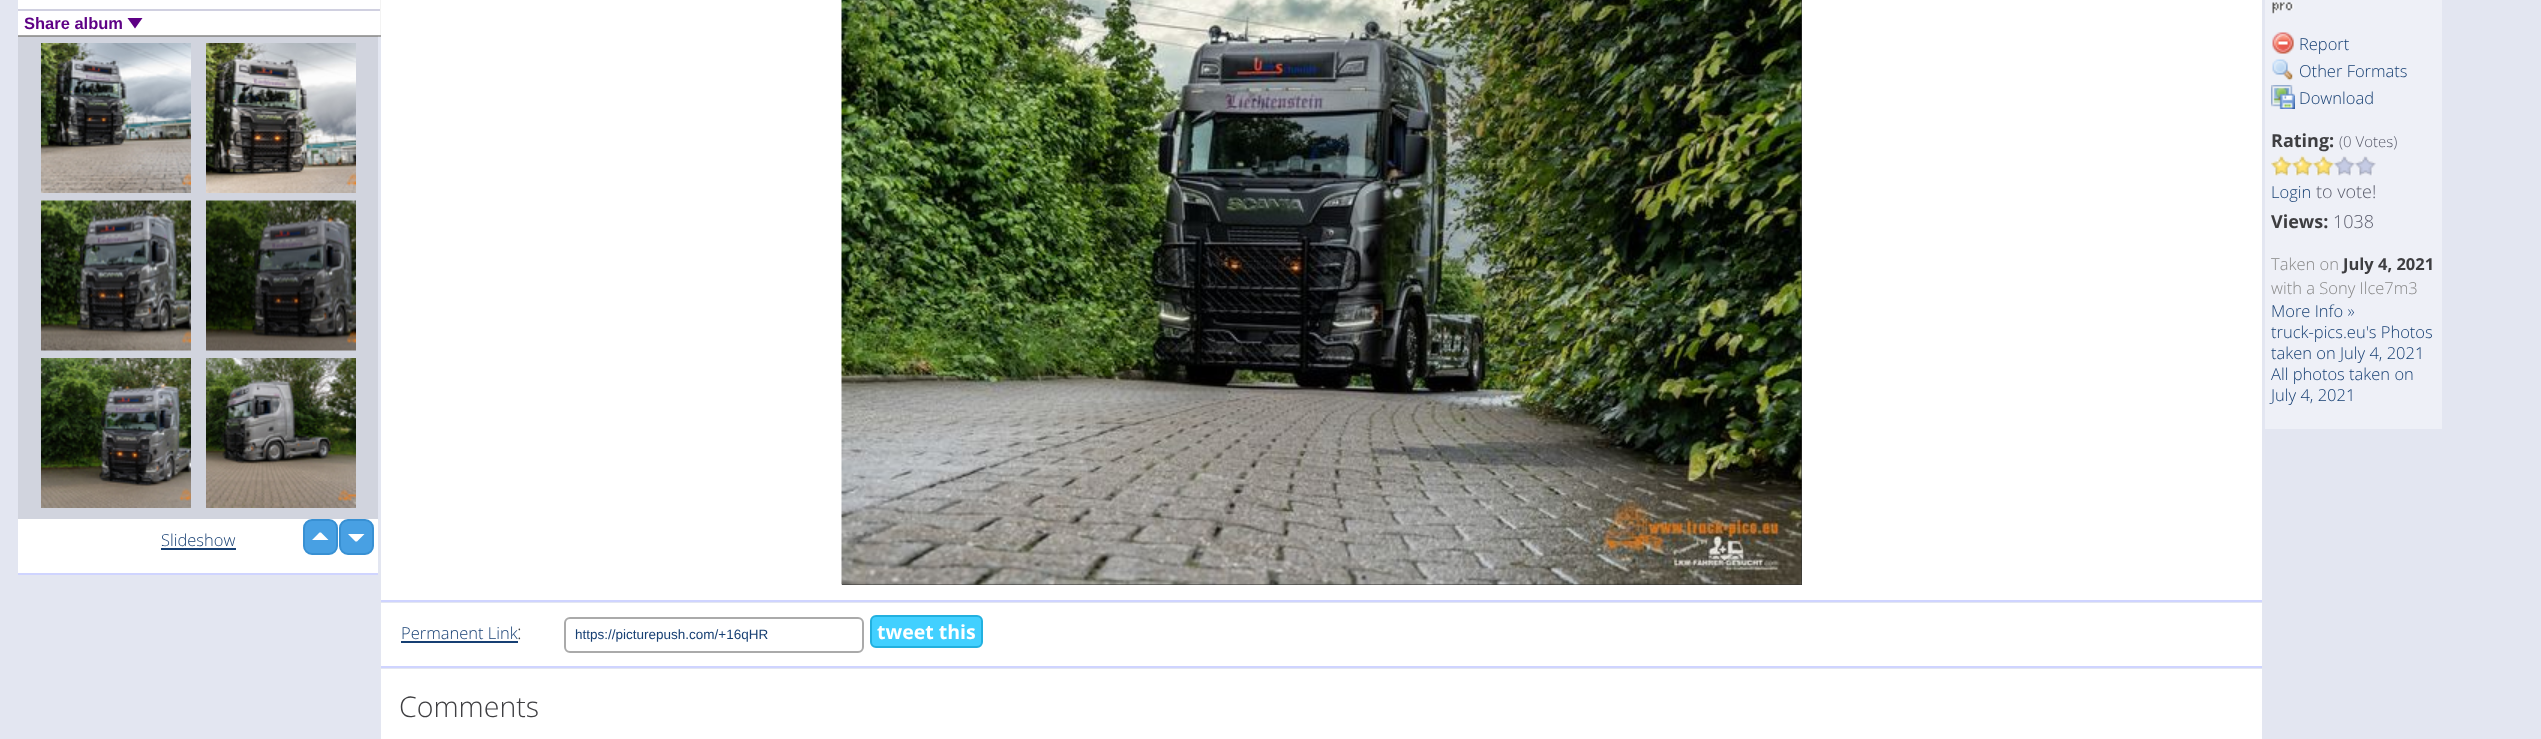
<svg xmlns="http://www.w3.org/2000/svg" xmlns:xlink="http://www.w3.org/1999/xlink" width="2541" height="739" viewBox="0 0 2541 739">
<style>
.cls-1{font:bold 16.5px Liberation Sans;fill:#5e0085}
.cls-2{font:300 16.5px Open Sans;fill:#163f73}
.cls-3{font:bold 18px Open Sans;fill:#3e3e41}
.cls-4{font:300 15px Open Sans;fill:#5a5c6c}
.cls-5{font:300 18px Open Sans;fill:#5a5c6c}
.cls-6{font:300 16.5px Open Sans;fill:#888888}
.cls-7{font:bold 16.5px Open Sans;fill:#3e3e41}
.cls-8{font:300 19.5px Open Sans;fill:#3e3e41}
.cls-9{font:13.5px Liberation Sans;fill:#163f73}
.cls-10{font:bold 19.5px Open Sans;fill:#ffffff}
.cls-11{font:300 28.5px Open Sans;fill:#3e3e41}
</style>
<rect width="100%" height="100%" fill="#e3e6f1"/>
<rect fill="#d1d4de" x="18" y="37" width="360" height="482"/>
<rect fill="#ffffff" x="18" y="0" width="362" height="35"/>
<rect fill="#f3f3f3" x="380" y="0" width="1" height="36"/>
<rect fill="#a4a4a4" x="18" y="35" width="363" height="2"/>
<rect fill="#979797" x="18" y="36" width="360" height="1"/>
<rect fill="#d0d0e0" x="18" y="9" width="362" height="2"/>
<path fill="#5e0085" d="M127.5 18H142.5L135 28.5Z"/>
<rect fill="#cfd4ff" x="18" y="573" width="360" height="2"/>
<image xlink:href="image0.png" x="41" y="43" width="150" height="150"/>
<image xlink:href="image1.png" x="206" y="43" width="150" height="150"/>
<image xlink:href="image2.png" x="41" y="200" width="150" height="151"/>
<image xlink:href="image3.png" x="206" y="200" width="150" height="151"/>
<image xlink:href="image4.png" x="41" y="358" width="150" height="150"/>
<image xlink:href="image5.png" x="206" y="358" width="150" height="150"/>
<rect fill="#ffffff" x="18" y="519" width="360" height="54"/>
<rect fill="#48a0e3" stroke="#3890d3" stroke-width="2" x="304" y="520" width="33" height="34" rx="8"/>
<rect fill="#48a0e3" stroke="#3890d3" stroke-width="2" x="340" y="520" width="33" height="34" rx="8"/>
<path fill="#ffffff" d="M328.5 540H312L319.5 532.5H321ZM348 534H364.5L357 541.5H355.5Z"/>
<rect fill="#163f73" x="161" y="548" width="75" height="2"/>
<rect fill="#ffffff" x="381" y="0" width="1881" height="600"/>
<rect fill="#cfd4ff" x="381" y="600" width="1881" height="2"/>
<rect fill="#333333" x="842" y="0" width="960" height="585"/>
<image xlink:href="image6.png" x="841" y="0" width="961" height="585"/>
<rect fill="#eef0f7" x="2265" y="0" width="177" height="429"/>
<image xlink:href="image7.png" x="2272" y="2" width="22" height="12"/>
<image xlink:href="image8.png" x="2272" y="32" width="22" height="22"/>
<image xlink:href="image9.png" x="2272" y="59" width="21" height="22"/>
<image xlink:href="image10.png" x="2271" y="85" width="24" height="24"/>
<image xlink:href="image11.png" x="2271" y="155" width="21" height="21"/>
<image xlink:href="image12.png" x="2292" y="155" width="21" height="21"/>
<image xlink:href="image12.png" x="2313" y="155" width="21" height="21"/>
<image xlink:href="image13.png" x="2334" y="156" width="21" height="20"/>
<image xlink:href="image13.png" x="2355" y="156" width="21" height="20"/>
<rect fill="#ffffff" x="381" y="603" width="1881" height="63"/>
<rect fill="#cfd4ff" x="381" y="666" width="1881" height="2"/>
<rect fill="#163f73" x="401" y="641" width="117" height="2"/>
<rect fill="none" stroke="#aaaaaa" stroke-width="2" x="565" y="618" width="298" height="34" rx="5"/>
<rect fill="#42d0ff" stroke="#22b0df" stroke-width="2" x="871" y="616" width="111" height="31" rx="5"/>
<rect fill="#ffffff" x="381" y="669" width="1881" height="70"/>
<text class="cls-1" x="24" y="29">Share album</text>
<text class="cls-2" x="161" y="546">Slideshow</text>
<text class="cls-2"><tspan x="2299" y="50">Report</tspan><tspan x="2299" y="77">Other Formats</tspan><tspan x="2299" y="104">Download</tspan></text>
<text class="cls-3" x="2271" y="147">Rating:</text>
<text class="cls-4" x="2339" y="147">(0 Votes)</text>
<text class="cls-2" x="2271" y="198">Login</text>
<text class="cls-5" x="2316" y="198">to vote!</text>
<text class="cls-3" x="2271" y="228">Views:</text>
<text class="cls-5" x="2333" y="228">1038</text>
<text class="cls-6" x="2271" y="270">Taken on</text>
<text class="cls-7" x="2343" y="270">July 4, 2021</text>
<text class="cls-6" x="2271" y="294">with a Sony Ilce7m3</text>
<text class="cls-2"><tspan x="2271" y="317">More Info »</tspan><tspan x="2271" y="338">truck-pics.eu's Photos</tspan><tspan x="2271" y="359">taken on July 4, 2021</tspan><tspan x="2271" y="380">All photos taken on</tspan><tspan x="2271" y="401">July 4, 2021</tspan></text>
<text class="cls-2" x="401" y="639">Permanent Link</text>
<text class="cls-8" x="517" y="639">:</text>
<text class="cls-9" x="575" y="639">https://picturepush.com/+16qHR</text>
<text class="cls-10" x="877" y="639">tweet this</text>
<text class="cls-11" x="399" y="717">Comments</text>
</svg>
